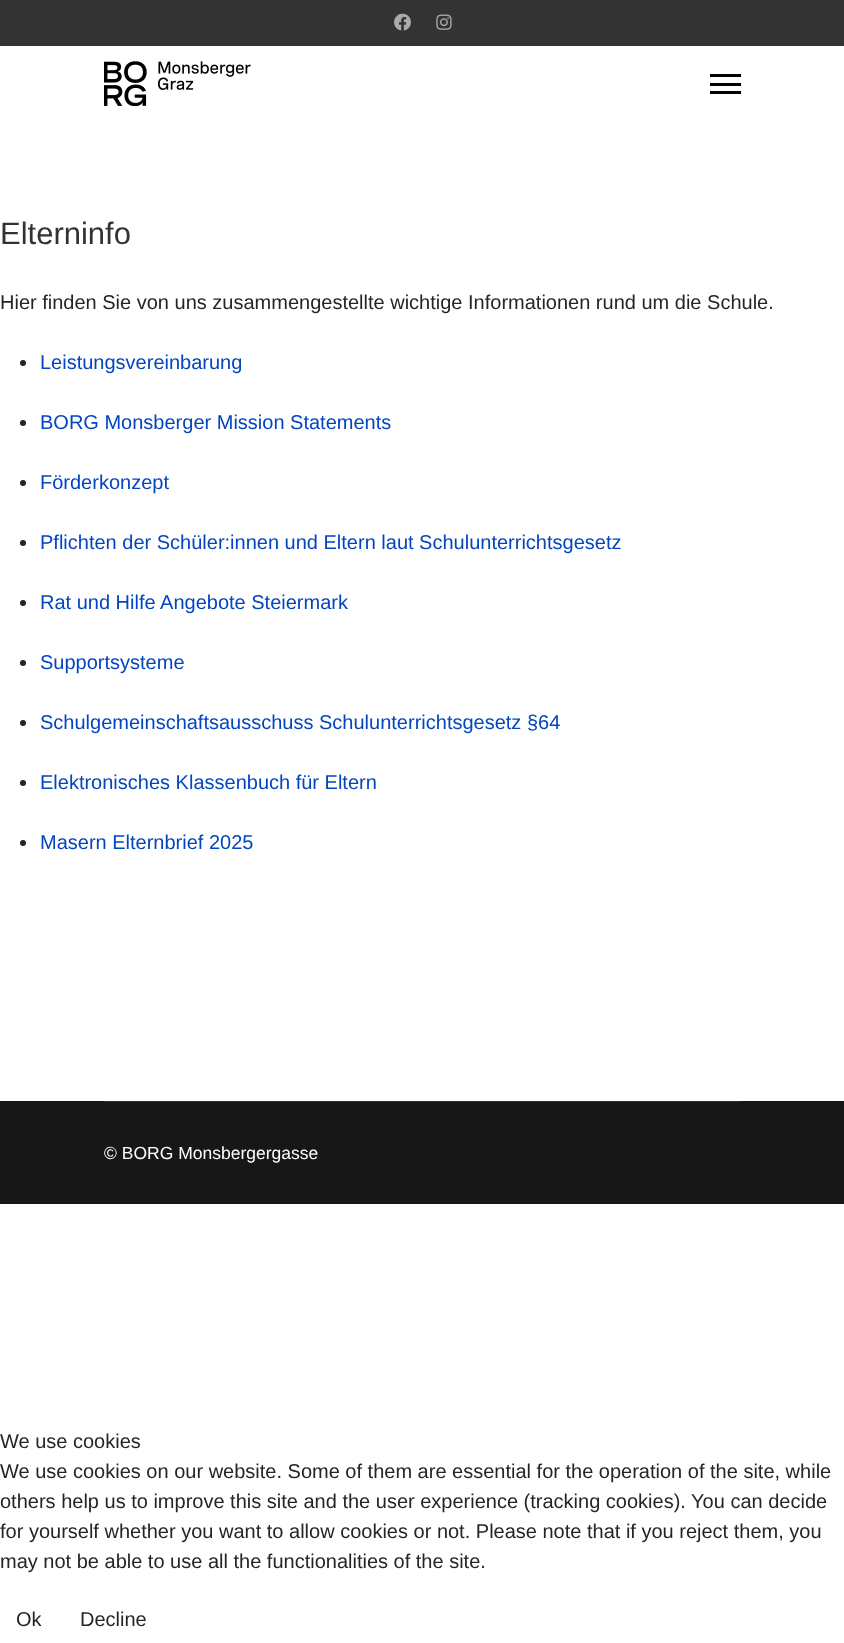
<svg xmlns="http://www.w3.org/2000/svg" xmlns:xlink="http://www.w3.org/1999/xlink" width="844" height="1643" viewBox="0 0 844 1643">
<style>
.cls-1{font:31px Liberation Sans;fill:#333333}
.cls-2{font:20px Liberation Sans;fill:#252525}
.cls-3{font:20px Liberation Sans;fill:#0345bf}
.cls-4{font:17.5px Liberation Sans;fill:#ffffff}
</style>
<rect width="100%" height="100%" fill="#ffffff"/>
<rect fill="#333333" x="0" y="0" width="844" height="46"/>
<image xlink:href="image0.png" x="394" y="13" width="17" height="18"/>
<image xlink:href="image1.png" x="436" y="14" width="16" height="16"/>
<image xlink:href="image2.png" x="104" y="61" width="147" height="45"/>
<rect fill="#000000" x="710" y="74" width="31" height="3"/>
<rect fill="#000000" x="710" y="83" width="31" height="3"/>
<rect fill="#000000" x="710" y="91" width="31" height="3"/>
<circle fill="#252525" cx="23" cy="363" r="3"/>
<circle fill="#252525" cx="23" cy="423" r="3"/>
<circle fill="#252525" cx="23" cy="483" r="3"/>
<circle fill="#252525" cx="23" cy="543" r="3"/>
<circle fill="#252525" cx="23" cy="603" r="3"/>
<circle fill="#252525" cx="23" cy="663" r="3"/>
<circle fill="#252525" cx="23" cy="723" r="3"/>
<circle fill="#252525" cx="23" cy="783" r="3"/>
<circle fill="#252525" cx="23" cy="843" r="3"/>
<rect fill="#171717" x="0" y="1101" width="844" height="103"/>
<rect fill="#2e2e2e" x="104" y="1101" width="637" height="1"/>
<text class="cls-1" x="0" y="244">Elterninfo</text>
<text class="cls-2" x="0" y="309">Hier finden Sie von uns zusammengestellte wichtige Informationen rund um die Schule.</text>
<text class="cls-3" x="40" y="369">Leistungsvereinbarung</text>
<text class="cls-3" x="40" y="429">BORG Monsberger Mission Statements</text>
<text class="cls-3" x="40" y="489">Förderkonzept</text>
<text class="cls-3" x="40" y="549">Pflichten der Schüler:innen und Eltern laut Schulunterrichtsgesetz</text>
<text class="cls-3" x="40" y="609">Rat und Hilfe Angebote Steiermark</text>
<text class="cls-3" x="40" y="669">Supportsysteme</text>
<text class="cls-3" x="40" y="729">Schulgemeinschaftsausschuss Schulunterrichtsgesetz §64</text>
<text class="cls-3" x="40" y="789">Elektronisches Klassenbuch für Eltern</text>
<text class="cls-3" x="40" y="849">Masern Elternbrief 2025</text>
<text class="cls-4" x="104" y="1159">© BORG Monsbergergasse</text>
<text class="cls-2"><tspan x="0" y="1448">We use cookies</tspan><tspan x="0" y="1478">We use cookies on our website. Some of them are essential for the operation of the site, while</tspan><tspan x="0" y="1508">others help us to improve this site and the user experience (tracking cookies). You can decide</tspan><tspan x="0" y="1538">for yourself whether you want to allow cookies or not. Please note that if you reject them, you</tspan><tspan x="0" y="1568">may not be able to use all the functionalities of the site.</tspan></text>
<text class="cls-2" x="16" y="1626">Ok</text>
<text class="cls-2" x="80" y="1626">Decline</text>
</svg>
